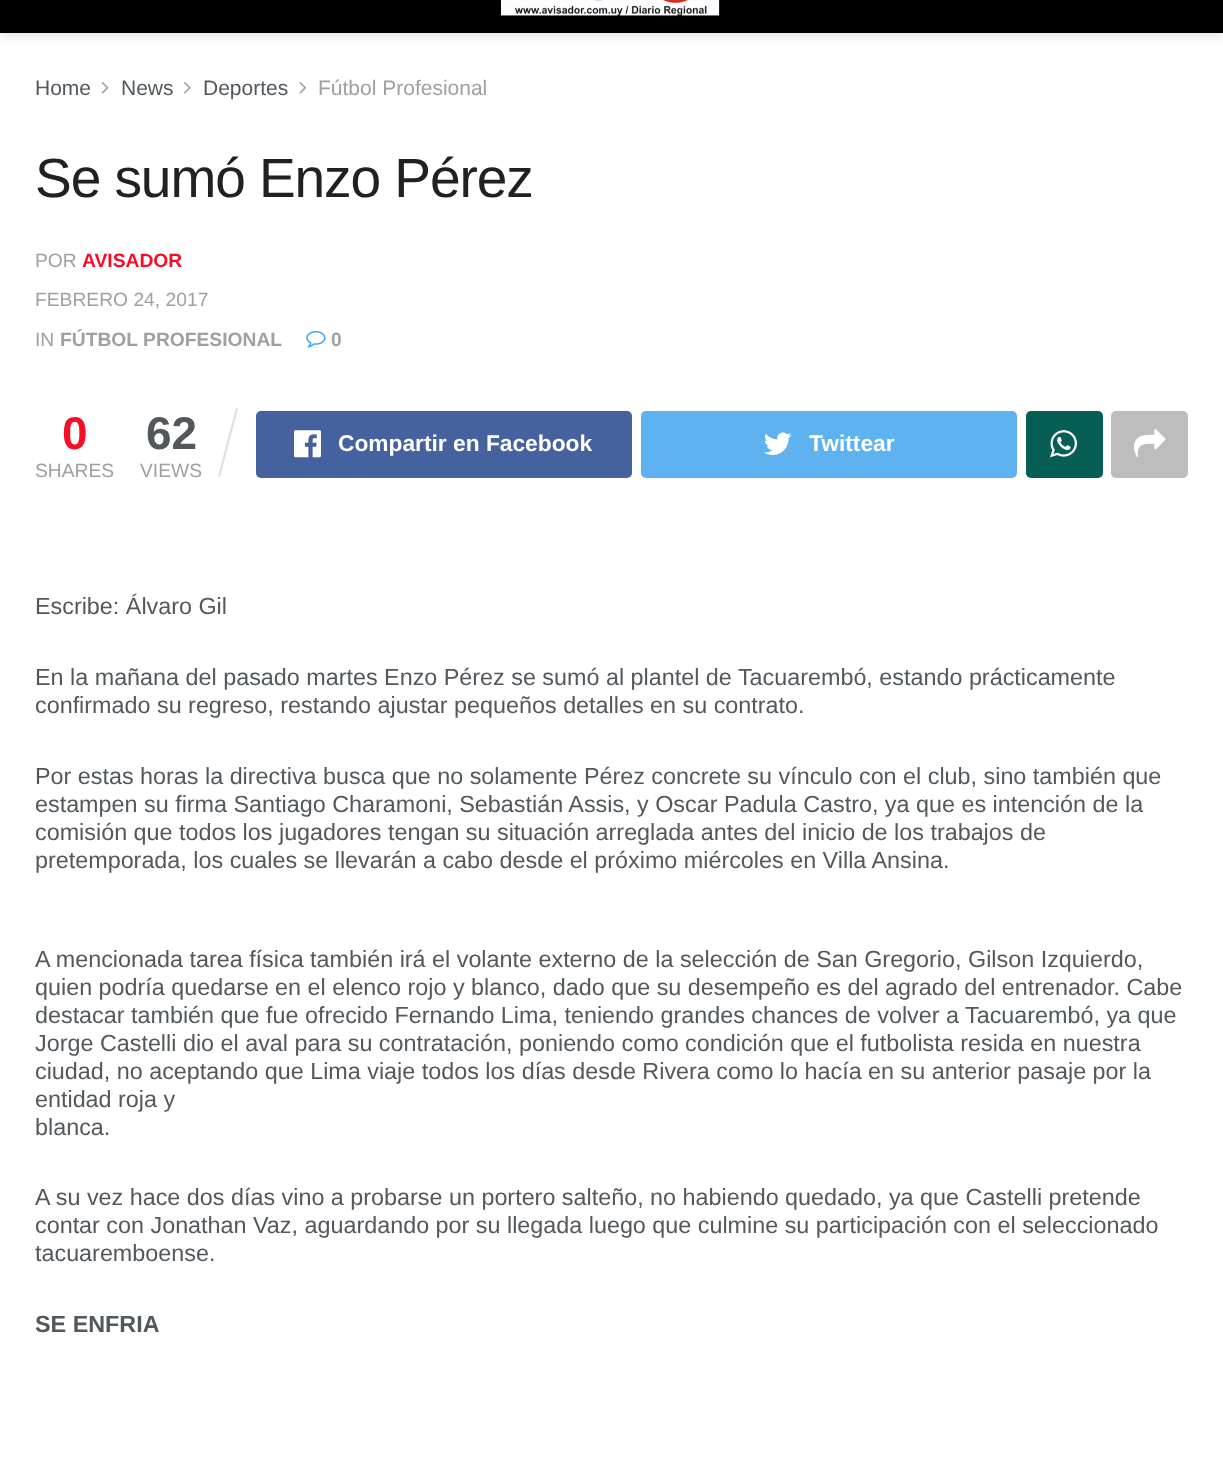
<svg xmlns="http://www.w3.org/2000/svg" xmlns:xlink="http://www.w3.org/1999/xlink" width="1223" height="1474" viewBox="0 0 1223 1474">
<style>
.cls-1{font:21px Liberation Sans;fill:#53585c}
.cls-2{font:21px Liberation Sans;fill:#a0a0a0}
.cls-3{font:55.1px Liberation Sans;letter-spacing:-1.1px;fill:#212121}
.cls-4{font:19.25px Liberation Sans;fill:#a0a0a0}
.cls-5{font:bold 19.25px Liberation Sans;fill:#f70d28}
.cls-6{font:bold 19.25px Liberation Sans;fill:#a0a0a0}
.cls-7{font:bold 46px Liberation Sans;fill:#f70d28}
.cls-8{font:bold 46px Liberation Sans;fill:#53585c}
.cls-9{font:bold 22.75px Liberation Sans;fill:#ffffff}
.cls-10{font:23.35px Liberation Sans;fill:#53585c}
.cls-11{font:bold 23.35px Liberation Sans;fill:#53585c}
</style>
<rect width="100%" height="100%" fill="#ffffff"/>
<rect fill="#000000" fill-opacity="0.1" filter="blur(5px)" x="0" y="-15" width="1223" height="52"/>
<rect fill="#000000" x="0" y="0" width="1223" height="33"/>
<image xlink:href="image0.png" x="501" y="0" width="219" height="16"/>
<image xlink:href="image1.png" x="101" y="82" width="8" height="12"/>
<image xlink:href="image2.png" x="184" y="82" width="7" height="12"/>
<image xlink:href="image3.png" x="299" y="82" width="8" height="12"/>
<image xlink:href="image4.png" x="306" y="331" width="20" height="17"/>
<path fill="#e0e0e0" d="M236 408L238 409L220 477L218 476Z"/>
<rect fill="#45629f" x="256" y="411" width="376" height="67" rx="5"/>
<image xlink:href="image5.png" x="294" y="430" width="27" height="28"/>
<rect fill="#5eb2ef" x="641" y="411" width="376" height="67" rx="5"/>
<image xlink:href="image6.png" x="764" y="432" width="28" height="23"/>
<rect fill="#075e54" x="1026" y="411" width="77" height="67" rx="5"/>
<image xlink:href="image7.png" x="1050" y="430" width="27" height="28"/>
<rect fill="#bdbdbd" x="1111" y="411" width="77" height="67" rx="5"/>
<image xlink:href="image8.png" x="1134" y="429" width="32" height="29"/>
<text class="cls-1" x="35" y="95">Home</text>
<text class="cls-1" x="121" y="95">News</text>
<text class="cls-1" x="203" y="95">Deportes</text>
<text class="cls-2" x="318" y="95">Fútbol Profesional</text>
<text class="cls-3" x="35" y="197">Se sumó Enzo Pérez</text>
<text class="cls-4" x="35" y="267">POR</text>
<text class="cls-5" x="82" y="267">AVISADOR</text>
<text class="cls-4" x="35" y="306">FEBRERO 24, 2017</text>
<text class="cls-4" x="35" y="346">IN</text>
<text class="cls-6" x="60" y="346">FÚTBOL PROFESIONAL</text>
<text class="cls-6" x="331" y="346">0</text>
<text class="cls-7" x="62" y="449">0</text>
<text class="cls-4" x="35" y="477">SHARES</text>
<text class="cls-8" x="146" y="449">62</text>
<text class="cls-4" x="140" y="477">VIEWS</text>
<text class="cls-9" x="338" y="451">Compartir en Facebook</text>
<text class="cls-9" x="809" y="451">Twittear</text>
<text class="cls-10" x="35" y="614">Escribe: Álvaro Gil</text>
<text class="cls-10"><tspan x="35" y="685">En la mañana del pasado martes Enzo Pérez se sumó al plantel de Tacuarembó, estando prácticamente</tspan><tspan x="35" y="713">confirmado su regreso, restando ajustar pequeños detalles en su contrato.</tspan></text>
<text class="cls-10"><tspan x="35" y="784">Por estas horas la directiva busca que no solamente Pérez concrete su vínculo con el club, sino también que</tspan><tspan x="35" y="812">estampen su firma Santiago Charamoni, Sebastián Assis, y Oscar Padula Castro, ya que es intención de la</tspan><tspan x="35" y="840">comisión que todos los jugadores tengan su situación arreglada antes del inicio de los trabajos de</tspan><tspan x="35" y="868">pretemporada, los cuales se llevarán a cabo desde el próximo miércoles en Villa Ansina.</tspan></text>
<text class="cls-10"><tspan x="35" y="967">A mencionada tarea física también irá el volante externo de la selección de San Gregorio, Gilson Izquierdo,</tspan><tspan x="35" y="995">quien podría quedarse en el elenco rojo y blanco, dado que su desempeño es del agrado del entrenador. Cabe</tspan><tspan x="35" y="1023">destacar también que fue ofrecido Fernando Lima, teniendo grandes chances de volver a Tacuarembó, ya que</tspan><tspan x="35" y="1051">Jorge Castelli dio el aval para su contratación, poniendo como condición que el futbolista resida en nuestra</tspan><tspan x="35" y="1079">ciudad, no aceptando que Lima viaje todos los días desde Rivera como lo hacía en su anterior pasaje por la</tspan><tspan x="35" y="1107">entidad roja y</tspan><tspan x="35" y="1135">blanca.</tspan></text>
<text class="cls-10"><tspan x="35" y="1205">A su vez hace dos días vino a probarse un portero salteño, no habiendo quedado, ya que Castelli pretende</tspan><tspan x="35" y="1233">contar con Jonathan Vaz, aguardando por su llegada luego que culmine su participación con el seleccionado</tspan><tspan x="35" y="1261">tacuaremboense.</tspan></text>
<text class="cls-11" x="35" y="1332">SE ENFRIA</text>
</svg>
